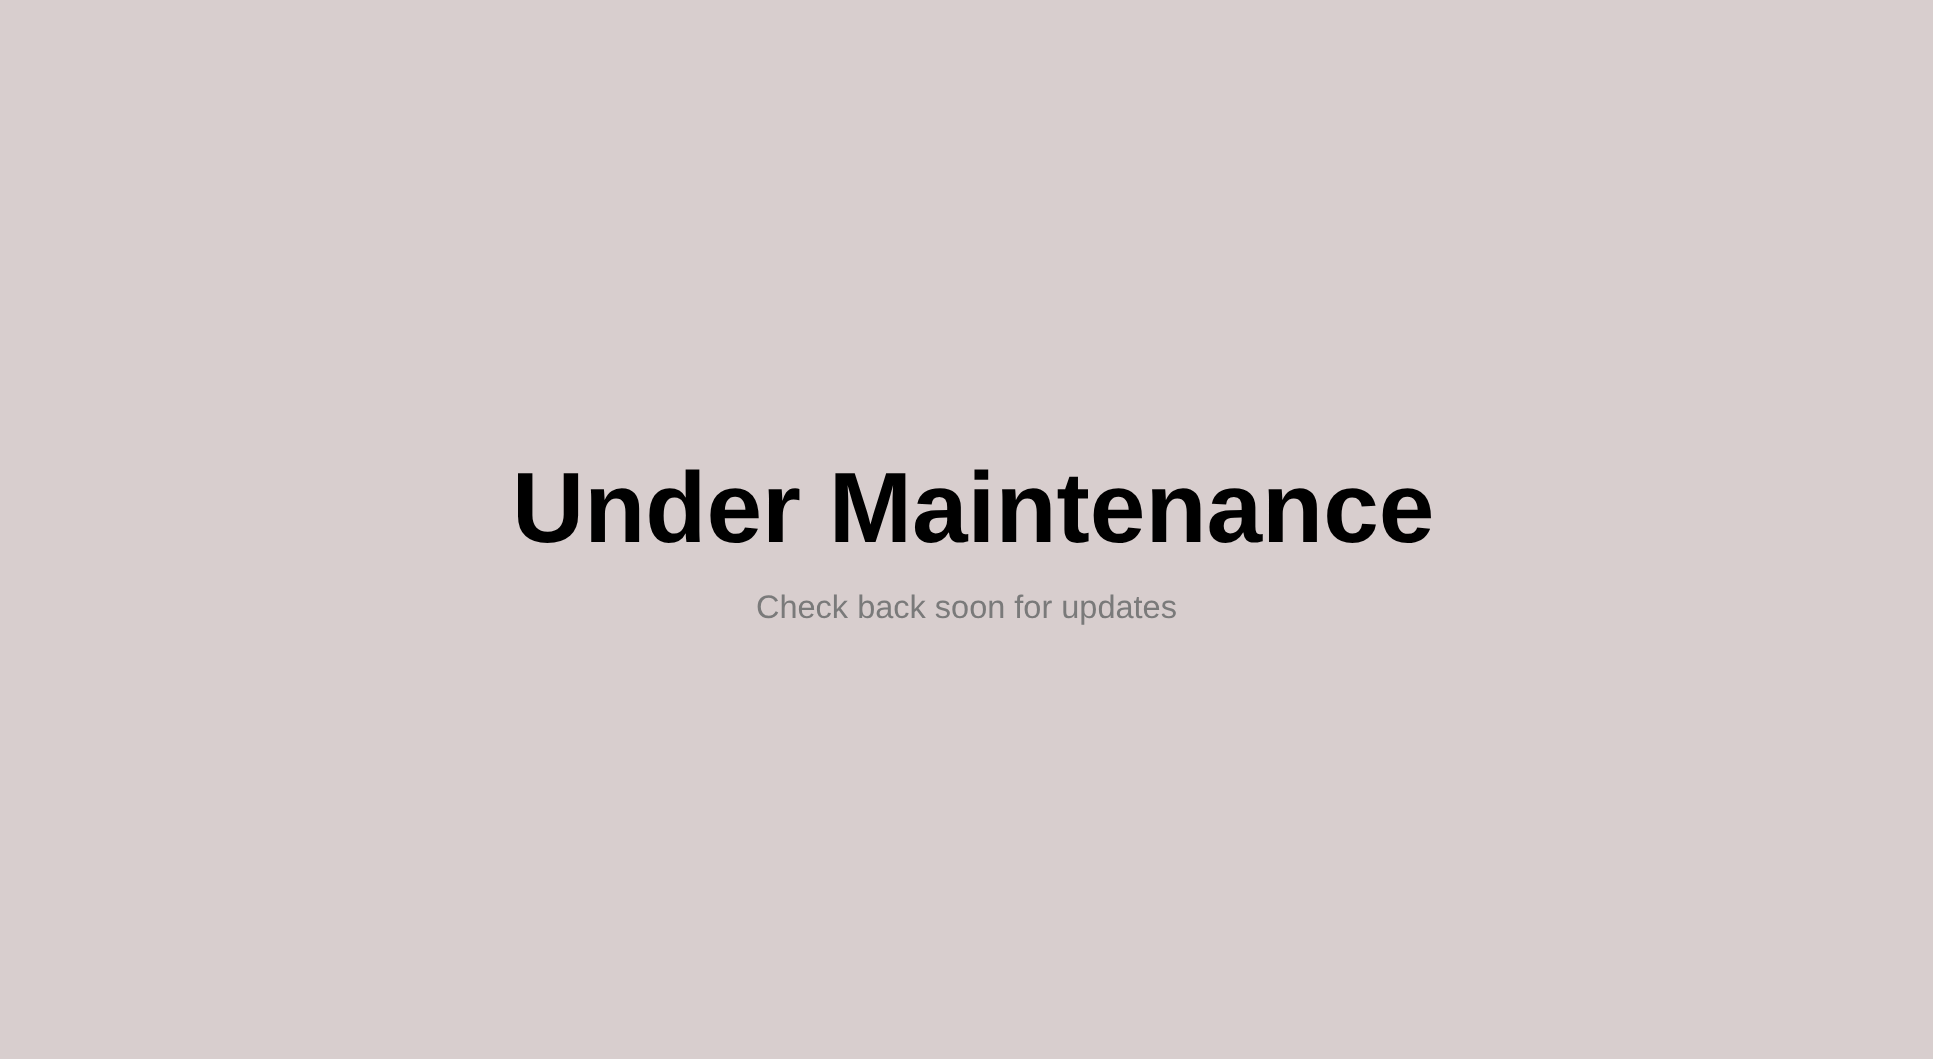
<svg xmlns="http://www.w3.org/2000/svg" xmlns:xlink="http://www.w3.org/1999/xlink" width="1933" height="1059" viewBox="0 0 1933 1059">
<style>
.cls-1{font:bold 100px Liberation Sans;fill:#000000}
.cls-2{font:32.5px Liberation Sans;fill:#7a7a7a}
</style>
<rect width="100%" height="100%" fill="#d8cece"/>
<text class="cls-1" x="512" y="542">Under Maintenance</text>
<text class="cls-2" x="756" y="618">Check back soon for updates</text>
</svg>
